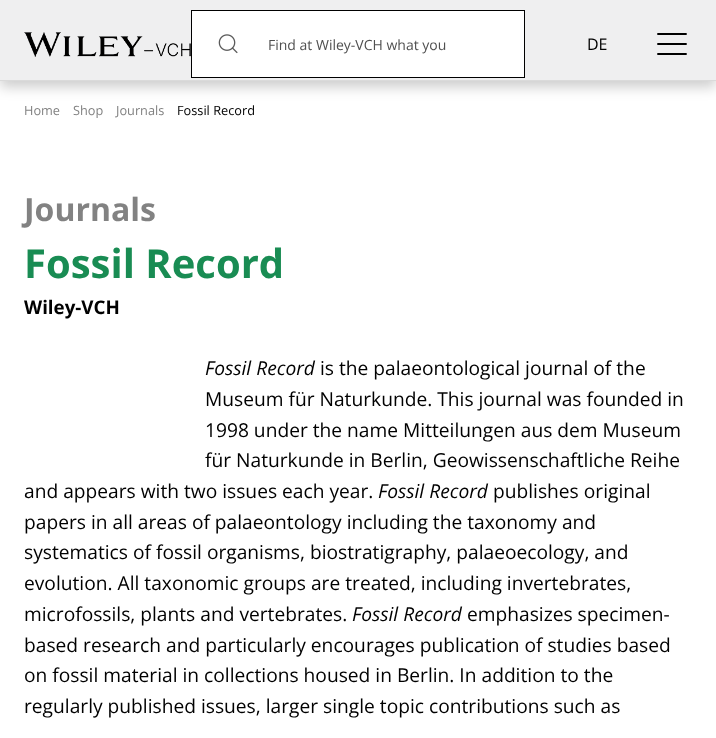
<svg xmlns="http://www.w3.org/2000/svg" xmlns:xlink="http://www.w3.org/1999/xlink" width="716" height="738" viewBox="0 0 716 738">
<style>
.cls-1{font:14px Open Sans;fill:#505050}
.cls-2{font:16px Open Sans;fill:#000000}
.cls-3{font:12.75px Open Sans;fill:#828282}
.cls-4{font:12.75px Open Sans;fill:#000000}
.cls-5{font:bold 32px Open Sans;fill:#828282}
.cls-6{font:bold 40px Open Sans;fill:#198c53}
.cls-7{font:bold 18.75px Open Sans;fill:#000000}
.cls-8{font:italic 19.2px Open Sans;fill:#000000}
.cls-9{font:19.2px Open Sans;fill:#000000}
</style>
<rect width="100%" height="100%" fill="#ffffff"/>
<rect fill="#000000" fill-opacity="0.2" filter="blur(6.5px)" x="0" y="6" width="716" height="81"/>
<rect fill="#efeff0" x="0" y="0" width="716" height="80"/>
<rect fill="#dadada" x="0" y="80" width="716" height="1"/>
<image xlink:href="image0.png" x="24" y="32" width="167" height="25"/>
<rect fill="#ffffff" stroke="#000000" x="191.5" y="10.5" width="333" height="67"/>
<image xlink:href="image1.png" x="218" y="34" width="20" height="20"/>
<path fill="none" stroke="#000000" stroke-width="1.9" stroke-linecap="round" stroke-linejoin="round" d="M658 44H686M658 34H686M658 54H686"/>
<text class="cls-1" x="268" y="50">Find at Wiley-VCH what you</text>
<text class="cls-2" x="587" y="50">DE</text>
<text class="cls-3" x="24" y="115">Home</text>
<text class="cls-3" x="73" y="115">Shop</text>
<text class="cls-3" x="116" y="115">Journals</text>
<text class="cls-4" x="177" y="115">Fossil Record</text>
<text class="cls-5" x="24" y="221">Journals</text>
<text class="cls-6" x="24" y="278">Fossil Record</text>
<text class="cls-7" x="24" y="314">Wiley-VCH</text>
<text class="cls-8" x="205" y="375">Fossil Record</text>
<text class="cls-9" x="320" y="375">is the palaeontological journal of the</text>
<text class="cls-9"><tspan x="205" y="406">Museum für Naturkunde. This journal was founded in</tspan><tspan x="205" y="437">1998 under the name Mitteilungen aus dem Museum</tspan><tspan x="205" y="467">für Naturkunde in Berlin, Geowissenschaftliche Reihe</tspan></text>
<text class="cls-9" x="24" y="498">and appears with two issues each year.</text>
<text class="cls-8" x="378" y="498">Fossil Record</text>
<text class="cls-9" x="493" y="498">publishes original</text>
<text class="cls-9"><tspan x="24" y="529">papers in all areas of palaeontology including the taxonomy and</tspan><tspan x="24" y="559">systematics of fossil organisms, biostratigraphy, palaeoecology, and</tspan><tspan x="24" y="590">evolution. All taxonomic groups are treated, including invertebrates,</tspan><tspan x="24" y="621">microfossils, plants and vertebrates.</tspan></text>
<text class="cls-8" x="352" y="621">Fossil Record</text>
<text class="cls-9" x="467" y="621">emphasizes specimen-</text>
<text class="cls-9"><tspan x="24" y="652">based research and particularly encourages publication of studies based</tspan><tspan x="24" y="682">on fossil material in collections housed in Berlin. In addition to the</tspan><tspan x="24" y="713">regularly published issues, larger single topic contributions such as</tspan></text>
</svg>
